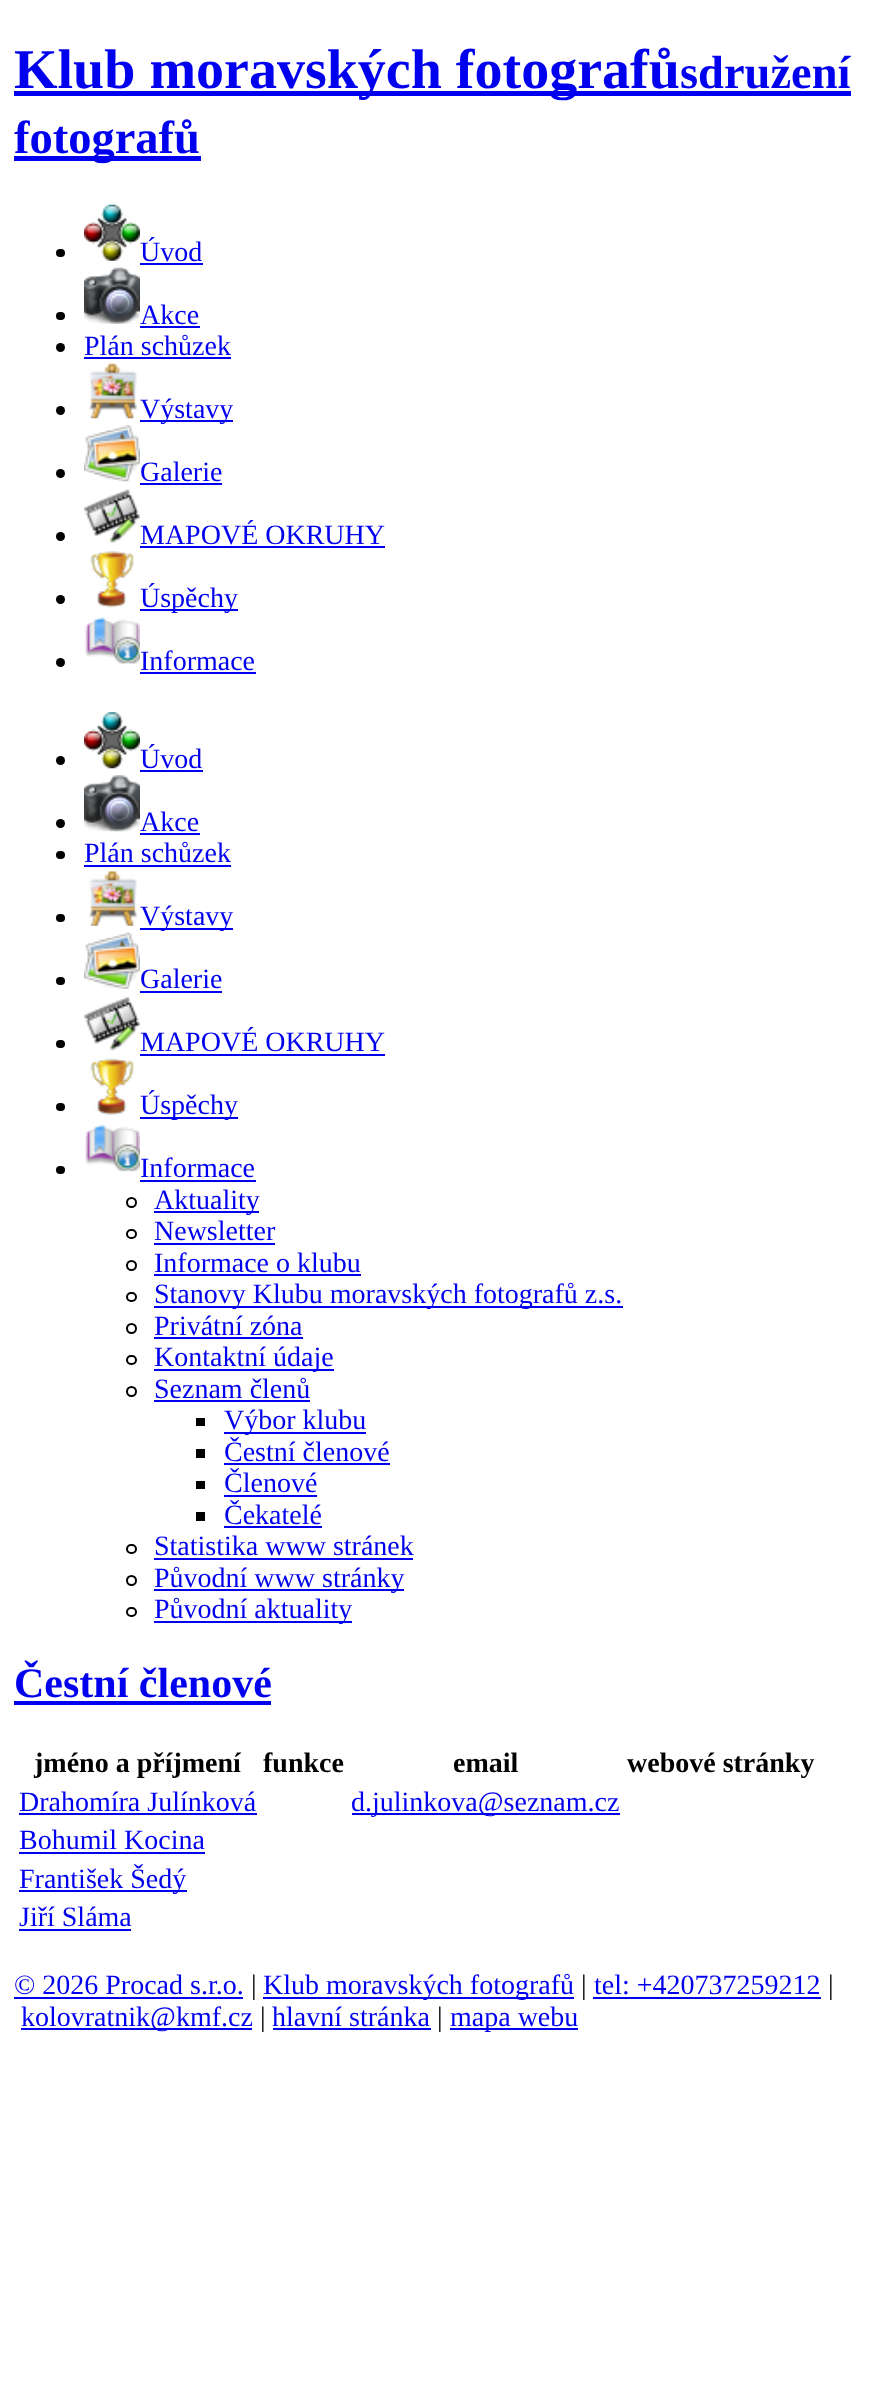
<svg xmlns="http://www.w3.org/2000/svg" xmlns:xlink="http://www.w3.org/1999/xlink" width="872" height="2391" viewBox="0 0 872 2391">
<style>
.cls-1{font:bold 56px Liberation Serif;fill:#0000ee}
.cls-2{font:bold 46.5px Liberation Serif;fill:#0000ee}
.cls-3{font:28px Liberation Serif;fill:#0000ee}
.cls-4{font:bold 42px Liberation Serif;fill:#0000ee}
.cls-5{font:bold 28px Liberation Serif;fill:#000000}
.cls-6{font:28px Liberation Serif;fill:#000000}
</style>
<rect width="100%" height="100%" fill="#ffffff"/>
<rect fill="#0000ee" x="14" y="91" width="837" height="5"/>
<rect fill="#0000ee" x="14" y="156" width="187" height="5"/>
<rect fill="#000000" x="56" y="249" width="9" height="8" rx="4"/>
<image xlink:href="image0.png" x="84" y="204" width="56" height="57"/>
<rect fill="#0000ee" x="140" y="263" width="63" height="2"/>
<rect fill="#000000" x="56" y="312" width="9" height="8" rx="4"/>
<image xlink:href="image1.png" x="84" y="267" width="56" height="57"/>
<rect fill="#0000ee" x="140" y="326" width="60" height="2"/>
<circle fill="#000000" cx="60.5" cy="347.5" r="4.5"/>
<rect fill="#0000ee" x="84" y="357" width="147" height="2"/>
<circle fill="#000000" cx="60.5" cy="410.5" r="4.5"/>
<image xlink:href="image2.png" x="89" y="362" width="48" height="57"/>
<rect fill="#0000ee" x="140" y="420" width="93" height="2"/>
<circle fill="#000000" cx="60.5" cy="473.5" r="4.5"/>
<image xlink:href="image3.png" x="84" y="425" width="56" height="57"/>
<rect fill="#0000ee" x="140" y="483" width="82" height="2"/>
<circle fill="#000000" cx="60.5" cy="536.5" r="4.5"/>
<image xlink:href="image4.png" x="84" y="489" width="56" height="54"/>
<rect fill="#0000ee" x="140" y="546" width="245" height="2"/>
<circle fill="#000000" cx="60.5" cy="599.5" r="4.5"/>
<image xlink:href="image5.png" x="90" y="551" width="44" height="57"/>
<rect fill="#0000ee" x="140" y="609" width="98" height="2"/>
<circle fill="#000000" cx="60.5" cy="662.5" r="4.5"/>
<image xlink:href="image6.png" x="85" y="617" width="55" height="47"/>
<rect fill="#0000ee" x="140" y="672" width="116" height="2"/>
<circle fill="#000000" cx="60.5" cy="760.5" r="4.5"/>
<image xlink:href="image7.png" x="84" y="712" width="56" height="57"/>
<rect fill="#0000ee" x="140" y="770" width="63" height="2"/>
<circle fill="#000000" cx="60.5" cy="823.5" r="4.5"/>
<image xlink:href="image8.png" x="84" y="775" width="56" height="57"/>
<rect fill="#0000ee" x="140" y="833" width="60" height="2"/>
<rect fill="#000000" x="56" y="851" width="9" height="8" rx="4"/>
<rect fill="#0000ee" x="84" y="865" width="147" height="2"/>
<rect fill="#000000" x="56" y="914" width="9" height="8" rx="4"/>
<image xlink:href="image9.png" x="89" y="870" width="48" height="56"/>
<rect fill="#0000ee" x="140" y="928" width="93" height="2"/>
<rect fill="#000000" x="56" y="977" width="9" height="8" rx="4"/>
<image xlink:href="image10.png" x="84" y="932" width="56" height="57"/>
<rect fill="#0000ee" x="140" y="991" width="82" height="2"/>
<rect fill="#000000" x="56" y="1040" width="9" height="8" rx="4"/>
<image xlink:href="image11.png" x="84" y="997" width="56" height="54"/>
<rect fill="#0000ee" x="140" y="1054" width="245" height="2"/>
<rect fill="#000000" x="56" y="1103" width="9" height="8" rx="4"/>
<image xlink:href="image12.png" x="90" y="1058" width="44" height="57"/>
<rect fill="#0000ee" x="140" y="1117" width="98" height="2"/>
<rect fill="#000000" x="56" y="1166" width="9" height="8" rx="4"/>
<image xlink:href="image13.png" x="85" y="1124" width="55" height="48"/>
<rect fill="#0000ee" x="140" y="1180" width="116" height="2"/>
<circle fill="none" stroke="#000000" stroke-width="2" cx="131.5" cy="1202.5" r="4.5"/>
<rect fill="#0000ee" x="154" y="1211" width="105" height="2"/>
<rect fill="none" stroke="#000000" stroke-width="2" x="127" y="1230" width="9" height="8" rx="4"/>
<rect fill="#0000ee" x="154" y="1243" width="121" height="2"/>
<circle fill="none" stroke="#000000" stroke-width="2" cx="131.5" cy="1265.5" r="4.5"/>
<rect fill="#0000ee" x="154" y="1274" width="207" height="2"/>
<rect fill="none" stroke="#000000" stroke-width="2" x="127" y="1293" width="9" height="8" rx="4"/>
<rect fill="#0000ee" x="154" y="1306" width="469" height="2"/>
<circle fill="none" stroke="#000000" stroke-width="2" cx="131.5" cy="1328.5" r="4.5"/>
<rect fill="#0000ee" x="154" y="1337" width="149" height="2"/>
<rect fill="none" stroke="#000000" stroke-width="2" x="127" y="1356" width="9" height="8" rx="4"/>
<rect fill="#0000ee" x="154" y="1369" width="180" height="2"/>
<circle fill="none" stroke="#000000" stroke-width="2" cx="131.5" cy="1391.5" r="4.5"/>
<rect fill="#0000ee" x="154" y="1400" width="156" height="2"/>
<rect fill="#000000" x="196" y="1418" width="9" height="8"/>
<rect fill="#0000ee" x="224" y="1432" width="142" height="2"/>
<rect fill="#000000" x="196" y="1449" width="9" height="9"/>
<rect fill="#0000ee" x="224" y="1463" width="166" height="2"/>
<rect fill="#000000" x="196" y="1481" width="9" height="8"/>
<rect fill="#0000ee" x="224" y="1495" width="93" height="2"/>
<rect fill="#000000" x="196" y="1512" width="9" height="9"/>
<rect fill="#0000ee" x="224" y="1526" width="98" height="2"/>
<rect fill="none" stroke="#000000" stroke-width="2" x="127" y="1545" width="9" height="8" rx="4"/>
<rect fill="#0000ee" x="154" y="1558" width="259" height="2"/>
<circle fill="none" stroke="#000000" stroke-width="2" cx="131.5" cy="1580.5" r="4.5"/>
<rect fill="#0000ee" x="154" y="1589" width="250" height="2"/>
<rect fill="none" stroke="#000000" stroke-width="2" x="127" y="1608" width="9" height="8" rx="4"/>
<rect fill="#0000ee" x="154" y="1621" width="198" height="2"/>
<rect fill="#0000ee" x="14" y="1701" width="257" height="4"/>
<rect fill="#0000ee" x="19" y="1813" width="238" height="2"/>
<rect fill="#0000ee" x="352" y="1813" width="268" height="2"/>
<rect fill="#0000ee" x="19" y="1852" width="186" height="2"/>
<rect fill="#0000ee" x="19" y="1890" width="168" height="2"/>
<rect fill="#0000ee" x="19" y="1929" width="112" height="2"/>
<rect fill="#0000ee" x="14" y="1997" width="229" height="2"/>
<rect fill="#0000ee" x="263" y="1997" width="311" height="2"/>
<rect fill="#0000ee" x="593" y="1997" width="228" height="2"/>
<rect fill="#0000ee" x="21" y="2028" width="231" height="2"/>
<rect fill="#0000ee" x="273" y="2028" width="158" height="2"/>
<rect fill="#0000ee" x="450" y="2028" width="128" height="2"/>
<text class="cls-1" x="14" y="88">Klub moravských fotografů</text>
<text class="cls-2" x="680" y="88">sdružení</text>
<text class="cls-2" x="14" y="153">fotografů</text>
<text class="cls-3" x="140" y="261">Úvod</text>
<text class="cls-3" x="140" y="324">Akce</text>
<text class="cls-3" x="84" y="355">Plán schůzek</text>
<text class="cls-3" x="140" y="418">Výstavy</text>
<text class="cls-3" x="140" y="481">Galerie</text>
<text class="cls-3" x="140" y="544">MAPOVÉ OKRUHY</text>
<text class="cls-3" x="140" y="607">Úspěchy</text>
<text class="cls-3" x="140" y="670">Informace</text>
<text class="cls-3" x="140" y="768">Úvod</text>
<text class="cls-3" x="140" y="831">Akce</text>
<text class="cls-3" x="84" y="862">Plán schůzek</text>
<text class="cls-3" x="140" y="925">Výstavy</text>
<text class="cls-3" x="140" y="988">Galerie</text>
<text class="cls-3" x="140" y="1051">MAPOVÉ OKRUHY</text>
<text class="cls-3" x="140" y="1114">Úspěchy</text>
<text class="cls-3" x="140" y="1177">Informace</text>
<text class="cls-3"><tspan x="154" y="1209">Aktuality</tspan><tspan x="154" y="1240">Newsletter</tspan><tspan x="154" y="1272">Informace o klubu</tspan><tspan x="154" y="1303">Stanovy Klubu moravských fotografů z.s.</tspan><tspan x="154" y="1335">Privátní zóna</tspan><tspan x="154" y="1366">Kontaktní údaje</tspan><tspan x="154" y="1398">Seznam členů</tspan></text>
<text class="cls-3"><tspan x="224" y="1429">Výbor klubu</tspan><tspan x="224" y="1461">Čestní členové</tspan><tspan x="224" y="1492">Členové</tspan><tspan x="224" y="1524">Čekatelé</tspan></text>
<text class="cls-3"><tspan x="154" y="1555">Statistika www stránek</tspan><tspan x="154" y="1587">Původní www stránky</tspan><tspan x="154" y="1618">Původní aktuality</tspan></text>
<text class="cls-4" x="14" y="1697">Čestní členové</text>
<text class="cls-5" x="34" y="1772">jméno a příjmení</text>
<text class="cls-5" x="263" y="1772">funkce</text>
<text class="cls-5" x="453" y="1772">email</text>
<text class="cls-5" x="627" y="1772">webové stránky</text>
<text class="cls-3" x="19" y="1811">Drahomíra Julínková</text>
<text class="cls-3" x="351" y="1811">d.julinkova@seznam.cz</text>
<text class="cls-3"><tspan x="19" y="1849">Bohumil Kocina</tspan><tspan x="19" y="1888">František Šedý</tspan><tspan x="19" y="1926">Jiří Sláma</tspan></text>
<text class="cls-3" x="14" y="1994">© 2026 Procad s.r.o.</text>
<text class="cls-6" x="251" y="1994">|</text>
<text class="cls-3" x="263" y="1994">Klub moravských fotografů</text>
<text class="cls-6" x="581" y="1994">|</text>
<text class="cls-3" x="594" y="1994">tel: +420737259212</text>
<text class="cls-6" x="828" y="1994">|</text>
<text class="cls-3" x="21" y="2026">kolovratnik@kmf.cz</text>
<text class="cls-6" x="260" y="2026">|</text>
<text class="cls-3" x="272" y="2026">hlavní stránka</text>
<text class="cls-6" x="437" y="2026">|</text>
<text class="cls-3" x="450" y="2026">mapa webu</text>
</svg>
